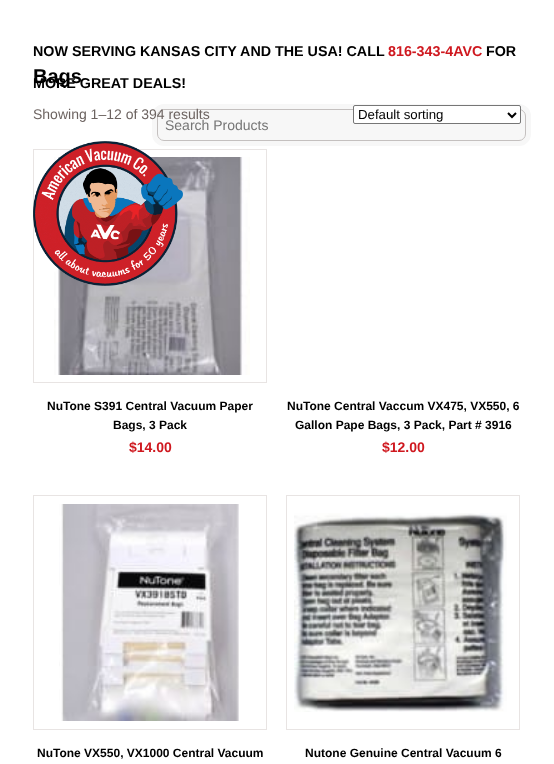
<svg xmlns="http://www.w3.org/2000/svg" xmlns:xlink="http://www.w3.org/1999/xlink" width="554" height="764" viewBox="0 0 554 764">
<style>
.cls-1{font:bold 14.3px Liberation Sans;fill:#000000}
.cls-2{font:bold 14.3px Liberation Sans;fill:#cf181f}
.cls-3{font:14px Liberation Sans;fill:#757575}
.cls-4{font:bold 20px Liberation Sans;fill:#000000}
.cls-5{font:14px Liberation Sans;fill:#6c6360}
.cls-6{font:13.25px Liberation Sans;fill:#000000}
.cls-7{font:bold 12px Liberation Sans;fill:#000000}
.cls-8{font:bold 14px Liberation Sans;fill:#cf181f}
</style>
<rect width="100%" height="100%" fill="#ffffff"/>
<rect fill="none" stroke="#f7f7f7" stroke-width="5" x="154.5" y="106.5" width="374" height="37" rx="9.5"/>
<rect fill="#f7f7f7" stroke="#c4c0bf" x="157.5" y="109.5" width="368" height="31" rx="6.5"/>
<rect fill="none" stroke="#e8e4e3" x="33.5" y="149.5" width="233" height="233"/>
<image xlink:href="image1.png" x="54" y="157" width="196" height="218"/>
<image xlink:href="image0.png" x="33" y="141" width="150" height="145"/>
<rect fill="#ffffff" stroke="#767676" x="353.5" y="105.5" width="167" height="18" rx="1.5"/>
<path fill="none" stroke="#000000" stroke-width="2" d="M508 113L512 117L516 113"/>
<rect fill="none" stroke="#e8e4e3" x="33.5" y="495.5" width="233" height="234"/>
<image xlink:href="image2.png" x="59" y="504" width="180" height="217"/>
<rect fill="none" stroke="#e8e4e3" x="286.5" y="495.5" width="233" height="234"/>
<image xlink:href="image3.png" x="294" y="513" width="213" height="199"/>
<text class="cls-1" x="33" y="56">NOW SERVING KANSAS CITY AND THE USA! CALL</text>
<text class="cls-2" x="388" y="56">816-343-4AVC</text>
<text class="cls-1" x="486" y="56">FOR</text>
<text class="cls-1" x="33" y="88">MORE GREAT DEALS!</text>
<text class="cls-3" x="165" y="130">Search Products</text>
<text class="cls-4" x="33" y="83">Bags</text>
<text class="cls-5" x="33" y="119">Showing 1–12 of 394 results</text>
<text class="cls-6" x="358" y="119">Default sorting</text>
<text class="cls-7" x="47" y="410">NuTone S391 Central Vacuum Paper</text>
<text class="cls-7" x="113" y="429">Bags, 3 Pack</text>
<text class="cls-8" x="129" y="452">$14.00</text>
<text class="cls-7" x="287" y="410">NuTone Central Vaccum VX475, VX550, 6</text>
<text class="cls-7" x="295" y="429">Gallon Pape Bags, 3 Pack, Part # 3916</text>
<text class="cls-8" x="382" y="452">$12.00</text>
<text class="cls-7" x="37" y="757">NuTone VX550, VX1000 Central Vacuum</text>
<text class="cls-7" x="305" y="757">Nutone Genuine Central Vacuum 6</text>
</svg>
